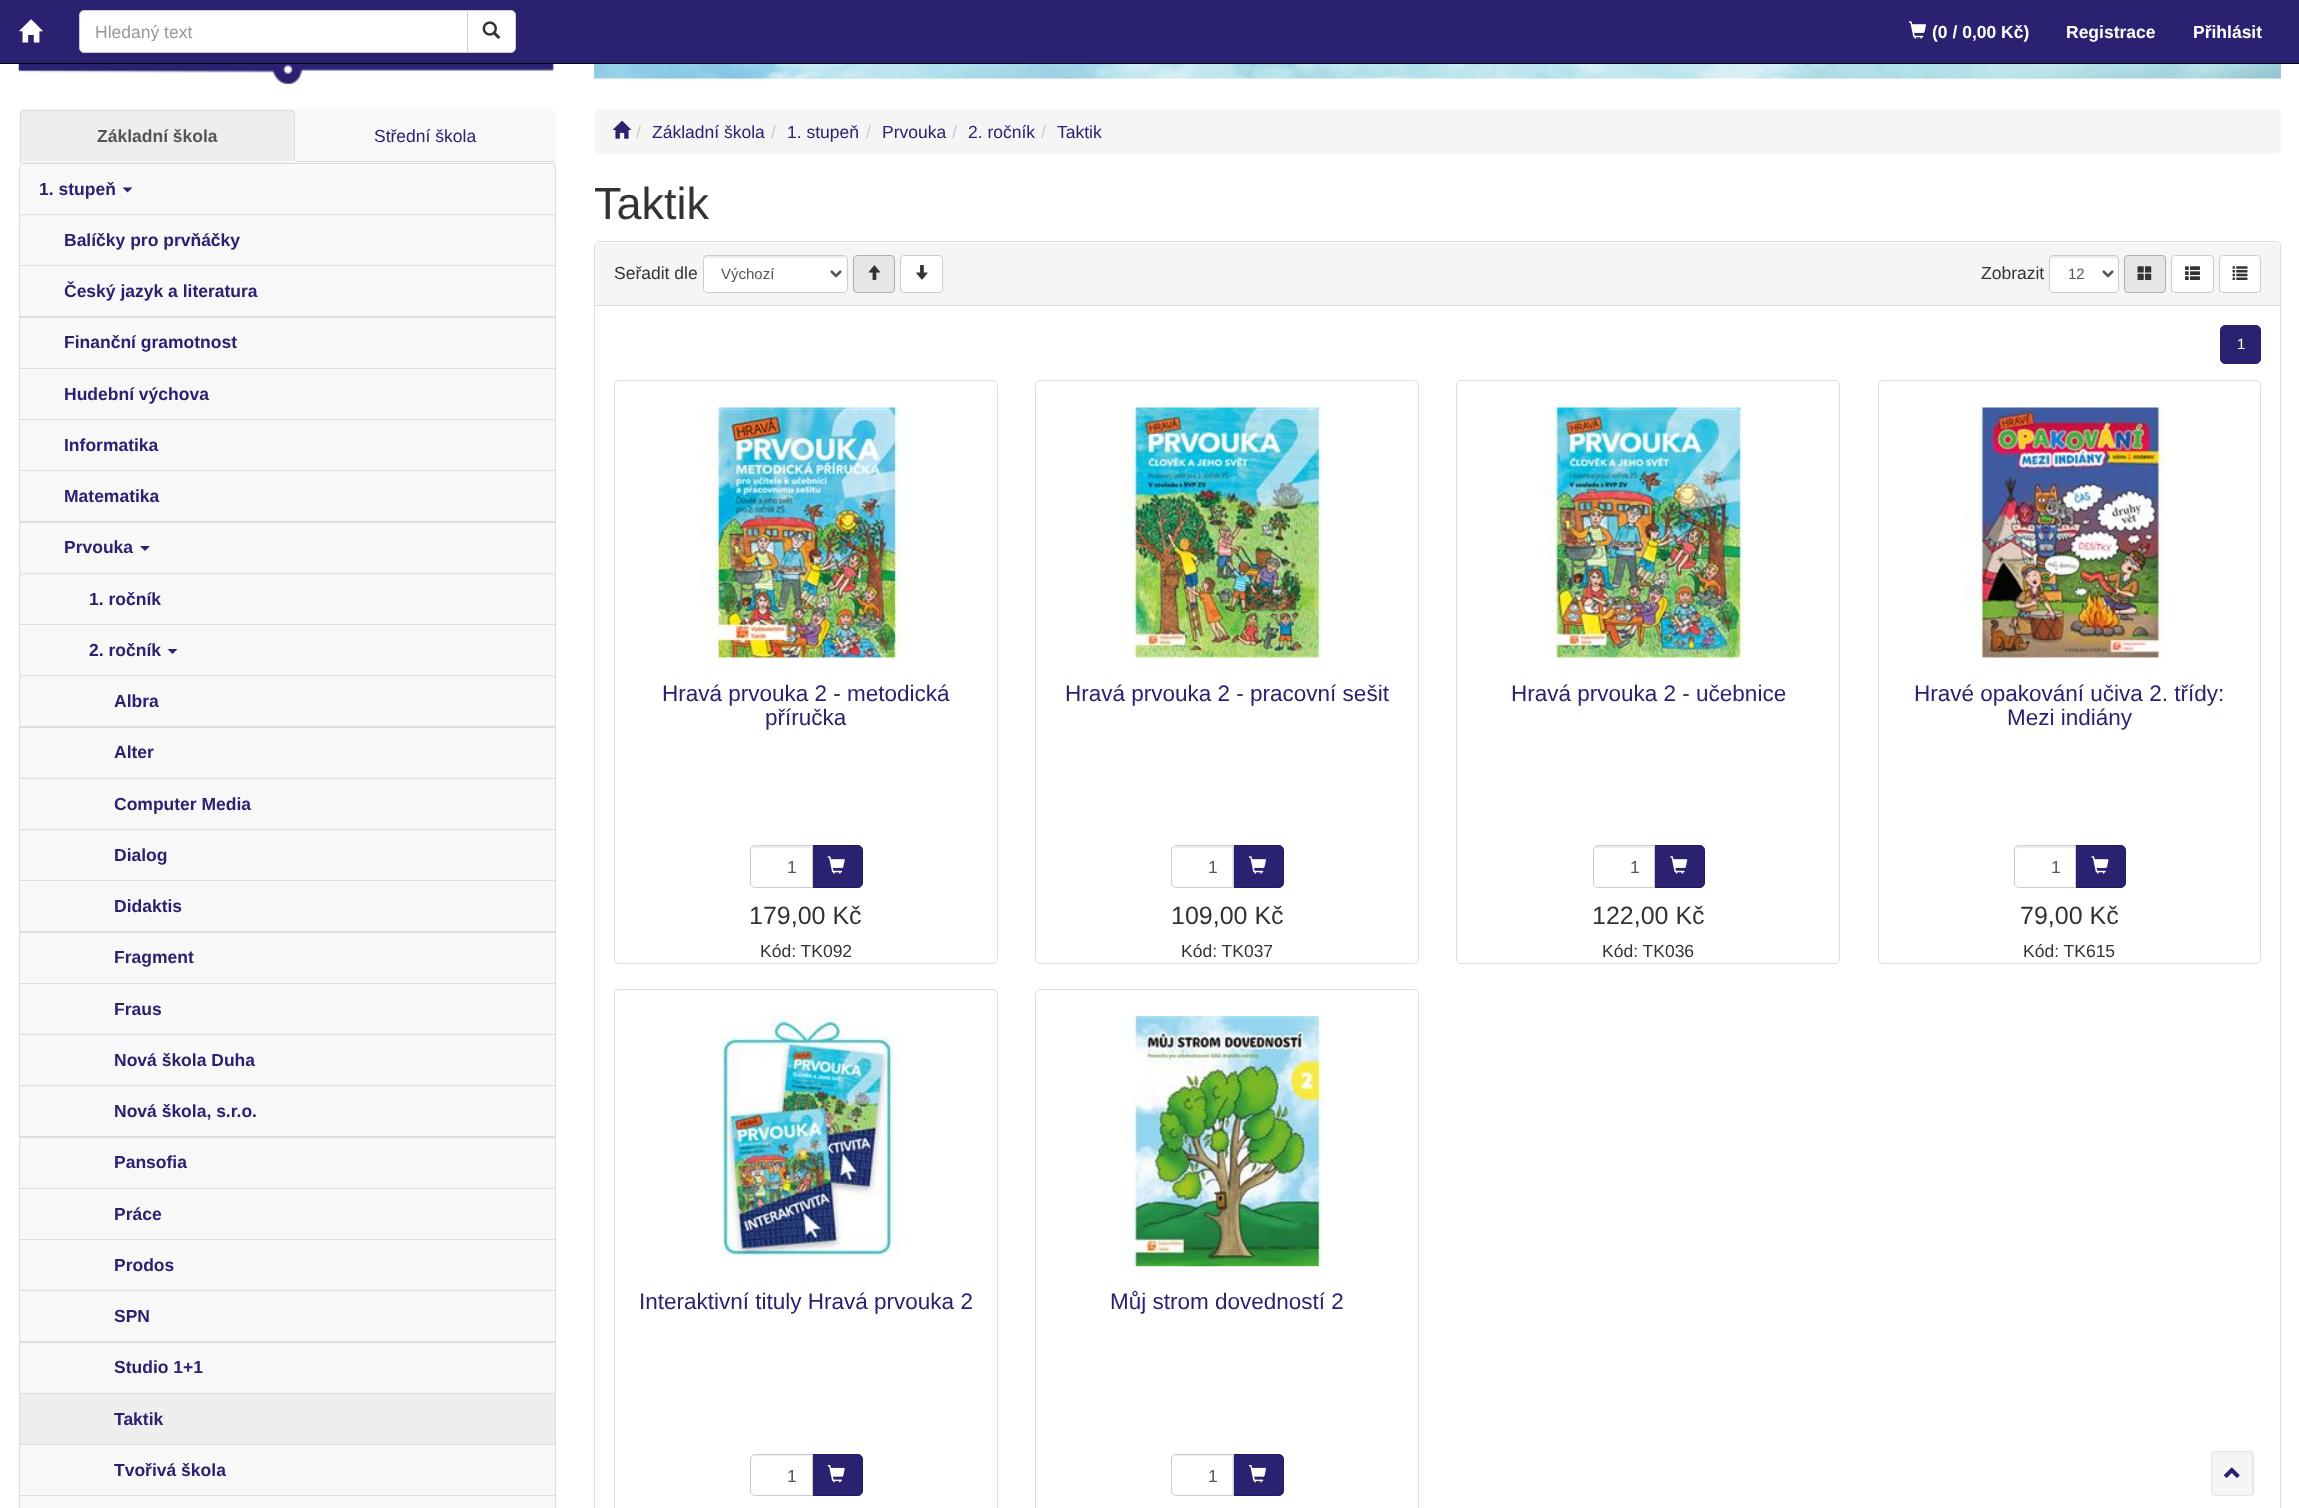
<svg xmlns="http://www.w3.org/2000/svg" xmlns:xlink="http://www.w3.org/1999/xlink" width="2299" height="1508" viewBox="0 0 2299 1508">
<style>
.cls-1{font:17.5px Liberation Sans;fill:#999999}
.cls-2{font:bold 17.5px Liberation Sans;fill:#ffffff}
.cls-3{font:bold 17.5px Liberation Sans;fill:#555555}
.cls-4{font:17.5px Liberation Sans;fill:#2b2171}
.cls-5{font:bold 17.5px Liberation Sans;fill:#2b2171}
.cls-6{font:17.5px Liberation Sans;fill:#cccccc}
.cls-7{font:45px Liberation Sans;fill:#333333}
.cls-8{font:17.5px Liberation Sans;fill:#333333}
.cls-9{font:15px Liberation Sans;fill:#555555}
.cls-10{font:15px Liberation Sans;fill:#ffffff}
.cls-11{font:22.5px Liberation Sans;fill:#2b2171}
.cls-12{font:17.5px Liberation Sans;fill:#555555}
.cls-13{font:25px Liberation Sans;fill:#333333}
</style>
<defs>
<clipPath id="clip1"><rect x="95" y="21" width="351" height="20"/></clipPath>
</defs>
<rect width="100%" height="100%" fill="#ffffff"/>
<rect fill="#2b2171" x="0" y="0" width="2299" height="63"/>
<rect fill="#080808" x="0" y="63" width="2299" height="1"/>
<image xlink:href="image0.png" x="19" y="19" width="24" height="24"/>
<path fill="#ffffff" stroke="#cccccc" d="M466.5 10.5H511C513.5 10.5 515.5 12.5 515.5 15V48C515.5 50.5 513.5 52.5 511 52.5H466.5Z"/>
<path fill="#ffffff" stroke="#cccccc" d="M84 10.5H467.5V52.5H84C81.5 52.5 79.5 50.5 79.5 48V15C79.5 12.5 81.5 10.5 84 10.5Z"/>
<image xlink:href="image1.png" x="482" y="21" width="19" height="18"/>
<image xlink:href="image2.png" x="1908" y="21" width="18" height="18"/>
<image xlink:href="image3.png" x="18" y="64" width="536" height="20"/>
<rect fill="#f8f8f8" x="19" y="109" width="537" height="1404" rx="5"/>
<path fill="#eeeeee" d="M25 110H290C293 110 295 112 295 115V163H20V115C20 112 22 110 25 110Z"/>
<path fill="#dddddd" d="M25 110C24 110 22 110 21 111L22 112C23 112 24 111 25 111H290C291 111 292 112 293 112L294 111C293 110 292 110 290 110Z"/>
<path fill="#dddddd" d="M295 162V115C295 114 294 112 294 111L293 112C294 113 294 114 294 115V161Z"/>
<path fill="#ffffff" d="M294 162H20L22 161H294Z"/>
<path fill="#dddddd" d="M20 115V162L22 161H21V115C21 114 22 113 22 112L21 111C20 112 20 114 20 115Z"/>
<rect fill="#dddddd" x="296" y="161" width="258" height="1"/>
<path fill="none" stroke="#dddddd" d="M24 163.5H551C553.5 163.5 555.5 165.5 555.5 168V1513.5H19.5V168C19.5 165.5 21.5 163.5 24 163.5Z"/>
<path fill="#2b2171" d="M122.5 187.5H132.5L127.5 192.5Z"/>
<path fill="#dddddd" fill-rule="evenodd" d="M555 266H20V265H555ZM24 214C22 214 21 215 20 216V219C20 217 22 215 24 215H551C553 215 555 217 555 219V216C554 215 553 214 551 214Z"/>
<path fill="#dddddd" fill-rule="evenodd" d="M555 318H20V317H555ZM20 266H555V265H20Z"/>
<path fill="#dddddd" fill-rule="evenodd" d="M555 369H20V368H555ZM20 317H555V316H20Z"/>
<path fill="#dddddd" fill-rule="evenodd" d="M555 420H20V419H555ZM20 369H555V368H20Z"/>
<path fill="#dddddd" fill-rule="evenodd" d="M555 471H20V470H555ZM20 420H555V419H20Z"/>
<path fill="#dddddd" fill-rule="evenodd" d="M555 523H20V522H555ZM20 471H555V470H20Z"/>
<path fill="#dddddd" fill-rule="evenodd" d="M555 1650H20V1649H555ZM20 522H555V521H20Z"/>
<path fill="#2b2171" d="M140 546H150L145 551Z"/>
<path fill="#dddddd" fill-rule="evenodd" d="M555 625H20V624H555ZM24 573C22 573 21 574 20 575V578C20 576 22 574 24 574H551C553 574 555 576 555 578V575C554 574 553 573 551 573Z"/>
<path fill="#2b2171" d="M167.5 649H177.5L172.5 654Z"/>
<path fill="#dddddd" fill-rule="evenodd" d="M555 728H20V727H555ZM24 675C22 675 21 676 20 677V680C20 678 22 676 24 676H551C553 676 555 678 555 680V677C554 676 553 675 551 675Z"/>
<path fill="#dddddd" fill-rule="evenodd" d="M555 779H20V778H555ZM20 727H555V726H20Z"/>
<path fill="#dddddd" fill-rule="evenodd" d="M555 830H20V829H555ZM20 779H555V778H20Z"/>
<path fill="#dddddd" fill-rule="evenodd" d="M555 881H20V880H555ZM20 830H555V829H20Z"/>
<path fill="#dddddd" fill-rule="evenodd" d="M555 933H20V932H555ZM20 881H555V880H20Z"/>
<path fill="#dddddd" fill-rule="evenodd" d="M555 984H20V983H555ZM20 932H555V931H20Z"/>
<path fill="#dddddd" fill-rule="evenodd" d="M555 1035H20V1034H555ZM20 984H555V983H20Z"/>
<path fill="#dddddd" fill-rule="evenodd" d="M555 1086H20V1085H555ZM20 1035H555V1034H20Z"/>
<path fill="#dddddd" fill-rule="evenodd" d="M555 1138H20V1137H555ZM20 1086H555V1085H20Z"/>
<path fill="#dddddd" fill-rule="evenodd" d="M555 1189H20V1188H555ZM20 1137H555V1136H20Z"/>
<path fill="#dddddd" fill-rule="evenodd" d="M555 1240H20V1239H555ZM20 1189H555V1188H20Z"/>
<path fill="#dddddd" fill-rule="evenodd" d="M555 1291H20V1290H555ZM20 1240H555V1239H20Z"/>
<path fill="#dddddd" fill-rule="evenodd" d="M555 1343H20V1342H555ZM20 1291H555V1290H20Z"/>
<path fill="#dddddd" fill-rule="evenodd" d="M555 1394H20V1393H555ZM20 1342H555V1341H20Z"/>
<path fill="#dddddd" fill-rule="evenodd" d="M555 1445H20V1444H555ZM20 1394H555V1393H20Z"/>
<rect fill="#eeeeee" x="20" y="1394" width="535" height="50"/>
<path fill="#dddddd" fill-rule="evenodd" d="M555 1496H20V1495H555ZM20 1445H555V1444H20Z"/>
<image xlink:href="image4.png" x="593" y="64" width="1689" height="15"/>
<rect fill="#f5f5f5" x="594" y="109" width="1687" height="45" rx="5"/>
<image xlink:href="image5.png" x="612" y="120" width="20" height="19"/>
<rect fill="none" stroke="#dddddd" x="594.5" y="241.5" width="1686" height="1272" rx="4.5"/>
<path fill="#f5f5f5" d="M599 243H2276C2278 243 2280 245 2280 247V306H595V247C595 245 597 243 599 243Z"/>
<rect fill="#dddddd" x="595" y="305" width="1685" height="1"/>
<rect fill="#ffffff" x="703" y="255" width="145" height="38" rx="4"/>
<path fill="#ececec" d="M706 258H844C845 258 846 259 846 260V258C846 257 845 256 844 256H706C705 256 704 257 704 258V260C704 259 705 258 706 258Z"/>
<rect fill="none" stroke="#cccccc" x="703.5" y="255.5" width="144" height="37" rx="3.5"/>
<path fill="none" stroke="#555555" stroke-width="2.5" d="M831 271L836 276L841 271"/>
<rect fill="#e6e6e6" stroke="#adadad" x="853.5" y="255.5" width="41" height="37" rx="3.5"/>
<image xlink:href="image6.png" x="868" y="265" width="13" height="15"/>
<rect fill="#ffffff" stroke="#cccccc" x="900.5" y="255.5" width="42" height="37" rx="3.5"/>
<image xlink:href="image7.png" x="916" y="265" width="12" height="15"/>
<rect fill="#ffffff" x="2049" y="255" width="70" height="38" rx="4"/>
<path fill="#ececec" d="M2052 258H2115C2116 258 2118 259 2118 260C2118 253 2111 256 2105 256H2063C2057 256 2050 253 2050 260C2050 259 2051 258 2052 258Z"/>
<rect fill="none" stroke="#cccccc" x="2049.5" y="255.5" width="69" height="37" rx="3.5"/>
<path fill="none" stroke="#555555" stroke-width="2.5" d="M2103 271L2108 276L2113 271"/>
<rect fill="#e6e6e6" stroke="#adadad" x="2124.5" y="255.5" width="41" height="37" rx="3.5"/>
<image xlink:href="image8.png" x="2137" y="266" width="15" height="14"/>
<rect fill="#ffffff" stroke="#cccccc" x="2171.5" y="255.5" width="42" height="37" rx="3.5"/>
<image xlink:href="image9.png" x="2185" y="266" width="15" height="14"/>
<rect fill="#ffffff" stroke="#cccccc" x="2219.5" y="255.5" width="41" height="37" rx="3.5"/>
<image xlink:href="image10.png" x="2232" y="266" width="16" height="14"/>
<rect fill="#2b2171" stroke="#2b2171" x="2220.5" y="325.5" width="40" height="38" rx="4.5"/>
<rect fill="none" stroke="#dddddd" x="614.5" y="380.5" width="383" height="583" rx="4.5"/>
<image xlink:href="image11.png" x="700" y="407" width="202" height="251"/>
<path fill="#2b2171" stroke="#231b5d" d="M811.5 845.5H858C860.5 845.5 862.5 847.5 862.5 850V883C862.5 885.5 860.5 887.5 858 887.5H811.5Z"/>
<path fill="#ffffff" d="M755 845H813V888H755C752 888 750 886 750 883V850C750 847 752 845 755 845Z"/>
<path fill="#ececec" d="M755 848H811V846H755C753 846 751 848 751 850V851C751 849 753 848 755 848Z"/>
<path fill="none" stroke="#cccccc" d="M755 845.5H812.5V887.5H755C752.5 887.5 750.5 885.5 750.5 883V850C750.5 847.5 752.5 845.5 755 845.5Z"/>
<image xlink:href="image12.png" x="827" y="856" width="18" height="18"/>
<rect fill="none" stroke="#dddddd" x="1035.5" y="380.5" width="383" height="583" rx="4.5"/>
<image xlink:href="image13.png" x="1122" y="407" width="201" height="251"/>
<path fill="#2b2171" stroke="#231b5d" d="M1233.5 845.5H1279C1281.5 845.5 1283.5 847.5 1283.5 850V883C1283.5 885.5 1281.5 887.5 1279 887.5H1233.5Z"/>
<path fill="#ffffff" d="M1176 845H1234V888H1176C1173 888 1171 886 1171 883V850C1171 847 1173 845 1176 845Z"/>
<path fill="#ececec" d="M1176 848H1232V886H1233V846H1177C1175 846 1174 847 1173 849Z"/>
<path fill="none" stroke="#cccccc" d="M1176 845.5H1233.5V887.5H1176C1173.5 887.5 1171.5 885.5 1171.5 883V850C1171.5 847.5 1173.5 845.5 1176 845.5Z"/>
<image xlink:href="image2.png" x="1248" y="856" width="18" height="18"/>
<rect fill="none" stroke="#dddddd" x="1456.5" y="380.5" width="383" height="583" rx="4.5"/>
<image xlink:href="image14.png" x="1543" y="407" width="202" height="251"/>
<path fill="#2b2171" stroke="#231b5d" d="M1654.5 845.5H1700C1702.5 845.5 1704.5 847.5 1704.5 850V883C1704.5 885.5 1702.5 887.5 1700 887.5H1654.5Z"/>
<path fill="#ffffff" d="M1598 845H1655V888H1598C1595 888 1593 886 1593 883V850C1593 847 1595 845 1598 845Z"/>
<path fill="#ececec" d="M1598 848H1654V846H1598C1596 846 1594 848 1594 850V851C1594 849 1595 848 1598 848Z"/>
<path fill="none" stroke="#cccccc" d="M1598 845.5H1654.5V887.5H1598C1595.5 887.5 1593.5 885.5 1593.5 883V850C1593.5 847.5 1595.5 845.5 1598 845.5Z"/>
<image xlink:href="image15.png" x="1670" y="856" width="18" height="18"/>
<rect fill="none" stroke="#dddddd" x="1878.5" y="380.5" width="382" height="583" rx="4.5"/>
<image xlink:href="image16.png" x="1965" y="407" width="201" height="251"/>
<path fill="#2b2171" stroke="#231b5d" d="M2075.5 845.5H2121C2123.5 845.5 2125.5 847.5 2125.5 850V883C2125.5 885.5 2123.5 887.5 2121 887.5H2075.5Z"/>
<path fill="#ffffff" d="M2019 845H2076V888H2019C2016 888 2014 886 2014 883V850C2014 847 2016 845 2019 845Z"/>
<path fill="#ececec" d="M2019 848H2075V846H2019C2017 846 2015 848 2015 850V851C2015 849 2017 848 2019 848Z"/>
<path fill="none" stroke="#cccccc" d="M2019 845.5H2075.5V887.5H2019C2016.5 887.5 2014.5 885.5 2014.5 883V850C2014.5 847.5 2016.5 845.5 2019 845.5Z"/>
<image xlink:href="image17.png" x="2091" y="856" width="18" height="18"/>
<rect fill="none" stroke="#dddddd" x="614.5" y="989.5" width="383" height="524" rx="4.5"/>
<image xlink:href="image18.png" x="720" y="1016" width="182" height="241"/>
<path fill="#2b2171" stroke="#231b5d" d="M811.5 1454.5H858C860.5 1454.5 862.5 1456.5 862.5 1459V1491C862.5 1493.5 860.5 1495.5 858 1495.5H811.5Z"/>
<path fill="#ffffff" d="M755 1454H813V1496H755C752 1496 750 1494 750 1491V1459C750 1456 752 1454 755 1454Z"/>
<path fill="#ececec" d="M755 1456H811V1455H755C753 1455 751 1457 751 1459V1460C751 1458 753 1456 755 1456Z"/>
<path fill="none" stroke="#cccccc" d="M755 1454.5H812.5V1495.5H755C752.5 1495.5 750.5 1493.5 750.5 1491V1459C750.5 1456.5 752.5 1454.5 755 1454.5Z"/>
<image xlink:href="image19.png" x="827" y="1465" width="18" height="18"/>
<rect fill="none" stroke="#dddddd" x="1035.5" y="989.5" width="383" height="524" rx="4.5"/>
<image xlink:href="image20.png" x="1122" y="1016" width="202" height="251"/>
<path fill="#2b2171" stroke="#231b5d" d="M1233.5 1454.5H1279C1281.5 1454.5 1283.5 1456.5 1283.5 1459V1491C1283.5 1493.5 1281.5 1495.5 1279 1495.5H1233.5Z"/>
<path fill="#ffffff" d="M1176 1454H1234V1496H1176C1173 1496 1171 1494 1171 1491V1459C1171 1456 1173 1454 1176 1454Z"/>
<path fill="#ececec" d="M1176 1456H1232V1495H1233V1455H1176L1174 1457Z"/>
<path fill="none" stroke="#cccccc" d="M1176 1454.5H1233.5V1495.5H1176C1173.5 1495.5 1171.5 1493.5 1171.5 1491V1459C1171.5 1456.5 1173.5 1454.5 1176 1454.5Z"/>
<image xlink:href="image21.png" x="1248" y="1465" width="18" height="18"/>
<rect fill="#f5f5f5" x="2211" y="1451" width="43" height="45" rx="4"/>
<path fill="#e9e9e9" d="M2215 1454H2244C2245 1454 2252 1453 2252 1456V1495C2253 1494 2253 1493 2253 1492V1456C2253 1454 2252 1453 2250 1453H2216C2214 1453 2214 1454 2213 1455Z"/>
<rect fill="none" stroke="#e3e3e3" x="2211.5" y="1451.5" width="42" height="44" rx="3.5"/>
<image xlink:href="image22.png" x="2223" y="1467" width="17" height="12"/>
<g clip-path="url(#clip1)">
<text class="cls-1" x="95" y="38">Hledaný text</text>
</g>
<text class="cls-2" x="1932" y="38">(0 / 0,00 Kč)</text>
<text class="cls-2" x="2066" y="38">Registrace</text>
<text class="cls-2" x="2193" y="38">Přihlásit</text>
<text class="cls-3" x="97" y="142">Základní škola</text>
<text class="cls-4" x="374" y="142">Střední škola</text>
<text class="cls-5" x="39" y="195">1. stupeň</text>
<text class="cls-5" x="64" y="246">Balíčky pro prvňáčky</text>
<text class="cls-5" x="64" y="297">Český jazyk a literatura</text>
<text class="cls-5" x="64" y="348">Finanční gramotnost</text>
<text class="cls-5" x="64" y="400">Hudební výchova</text>
<text class="cls-5" x="64" y="451">Informatika</text>
<text class="cls-5" x="64" y="502">Matematika</text>
<text class="cls-5" x="64" y="553">Prvouka</text>
<text class="cls-5" x="89" y="605">1. ročník</text>
<text class="cls-5" x="89" y="656">2. ročník</text>
<text class="cls-5" x="114" y="707">Albra</text>
<text class="cls-5" x="114" y="758">Alter</text>
<text class="cls-5" x="114" y="810">Computer Media</text>
<text class="cls-5" x="114" y="861">Dialog</text>
<text class="cls-5" x="114" y="912">Didaktis</text>
<text class="cls-5" x="114" y="963">Fragment</text>
<text class="cls-5" x="114" y="1015">Fraus</text>
<text class="cls-5" x="114" y="1066">Nová škola Duha</text>
<text class="cls-5" x="114" y="1117">Nová škola, s.r.o.</text>
<text class="cls-5" x="114" y="1168">Pansofia</text>
<text class="cls-5" x="114" y="1220">Práce</text>
<text class="cls-5" x="114" y="1271">Prodos</text>
<text class="cls-5" x="114" y="1322">SPN</text>
<text class="cls-5" x="114" y="1373">Studio 1+1</text>
<text class="cls-5" x="114" y="1425">Taktik</text>
<text class="cls-5" x="114" y="1476">Tvořivá škola</text>
<text class="cls-6" x="636" y="138">/</text>
<text class="cls-4" x="652" y="138">Základní škola</text>
<text class="cls-6" x="771" y="138">/</text>
<text class="cls-4" x="787" y="138">1. stupeň</text>
<text class="cls-6" x="866" y="138">/</text>
<text class="cls-4" x="882" y="138">Prvouka</text>
<text class="cls-6" x="952" y="138">/</text>
<text class="cls-4" x="968" y="138">2. ročník</text>
<text class="cls-6" x="1041" y="138">/</text>
<text class="cls-4" x="1057" y="138">Taktik</text>
<text class="cls-7" x="594" y="219">Taktik</text>
<text class="cls-8" x="614" y="279">Seřadit dle</text>
<text class="cls-9" x="721" y="279">Výchozí</text>
<text class="cls-8" x="1981" y="279">Zobrazit</text>
<text class="cls-9" x="2068" y="279">12</text>
<text class="cls-10" x="2237" y="349">1</text>
<text class="cls-11" x="662" y="701">Hravá prvouka 2 - metodická</text>
<text class="cls-11" x="765" y="725">příručka</text>
<text class="cls-12" x="787" y="873">1</text>
<text class="cls-13" x="749" y="924">179,00 Kč</text>
<text class="cls-8" x="760" y="957">Kód: TK092</text>
<text class="cls-11" x="1065" y="701">Hravá prvouka 2 - pracovní sešit</text>
<text class="cls-12" x="1208" y="873">1</text>
<text class="cls-13" x="1171" y="924">109,00 Kč</text>
<text class="cls-8" x="1181" y="957">Kód: TK037</text>
<text class="cls-11" x="1511" y="701">Hravá prvouka 2 - učebnice</text>
<text class="cls-12" x="1630" y="873">1</text>
<text class="cls-13" x="1592" y="924">122,00 Kč</text>
<text class="cls-8" x="1602" y="957">Kód: TK036</text>
<text class="cls-11" x="1914" y="701">Hravé opakování učiva 2. třídy:</text>
<text class="cls-11" x="2007" y="725">Mezi indiány</text>
<text class="cls-12" x="2051" y="873">1</text>
<text class="cls-13" x="2020" y="924">79,00 Kč</text>
<text class="cls-8" x="2023" y="957">Kód: TK615</text>
<text class="cls-11" x="639" y="1309">Interaktivní tituly Hravá prvouka 2</text>
<text class="cls-12" x="787" y="1482">1</text>
<text class="cls-11" x="1110" y="1309">Můj strom dovedností 2</text>
<text class="cls-12" x="1208" y="1482">1</text>
</svg>
